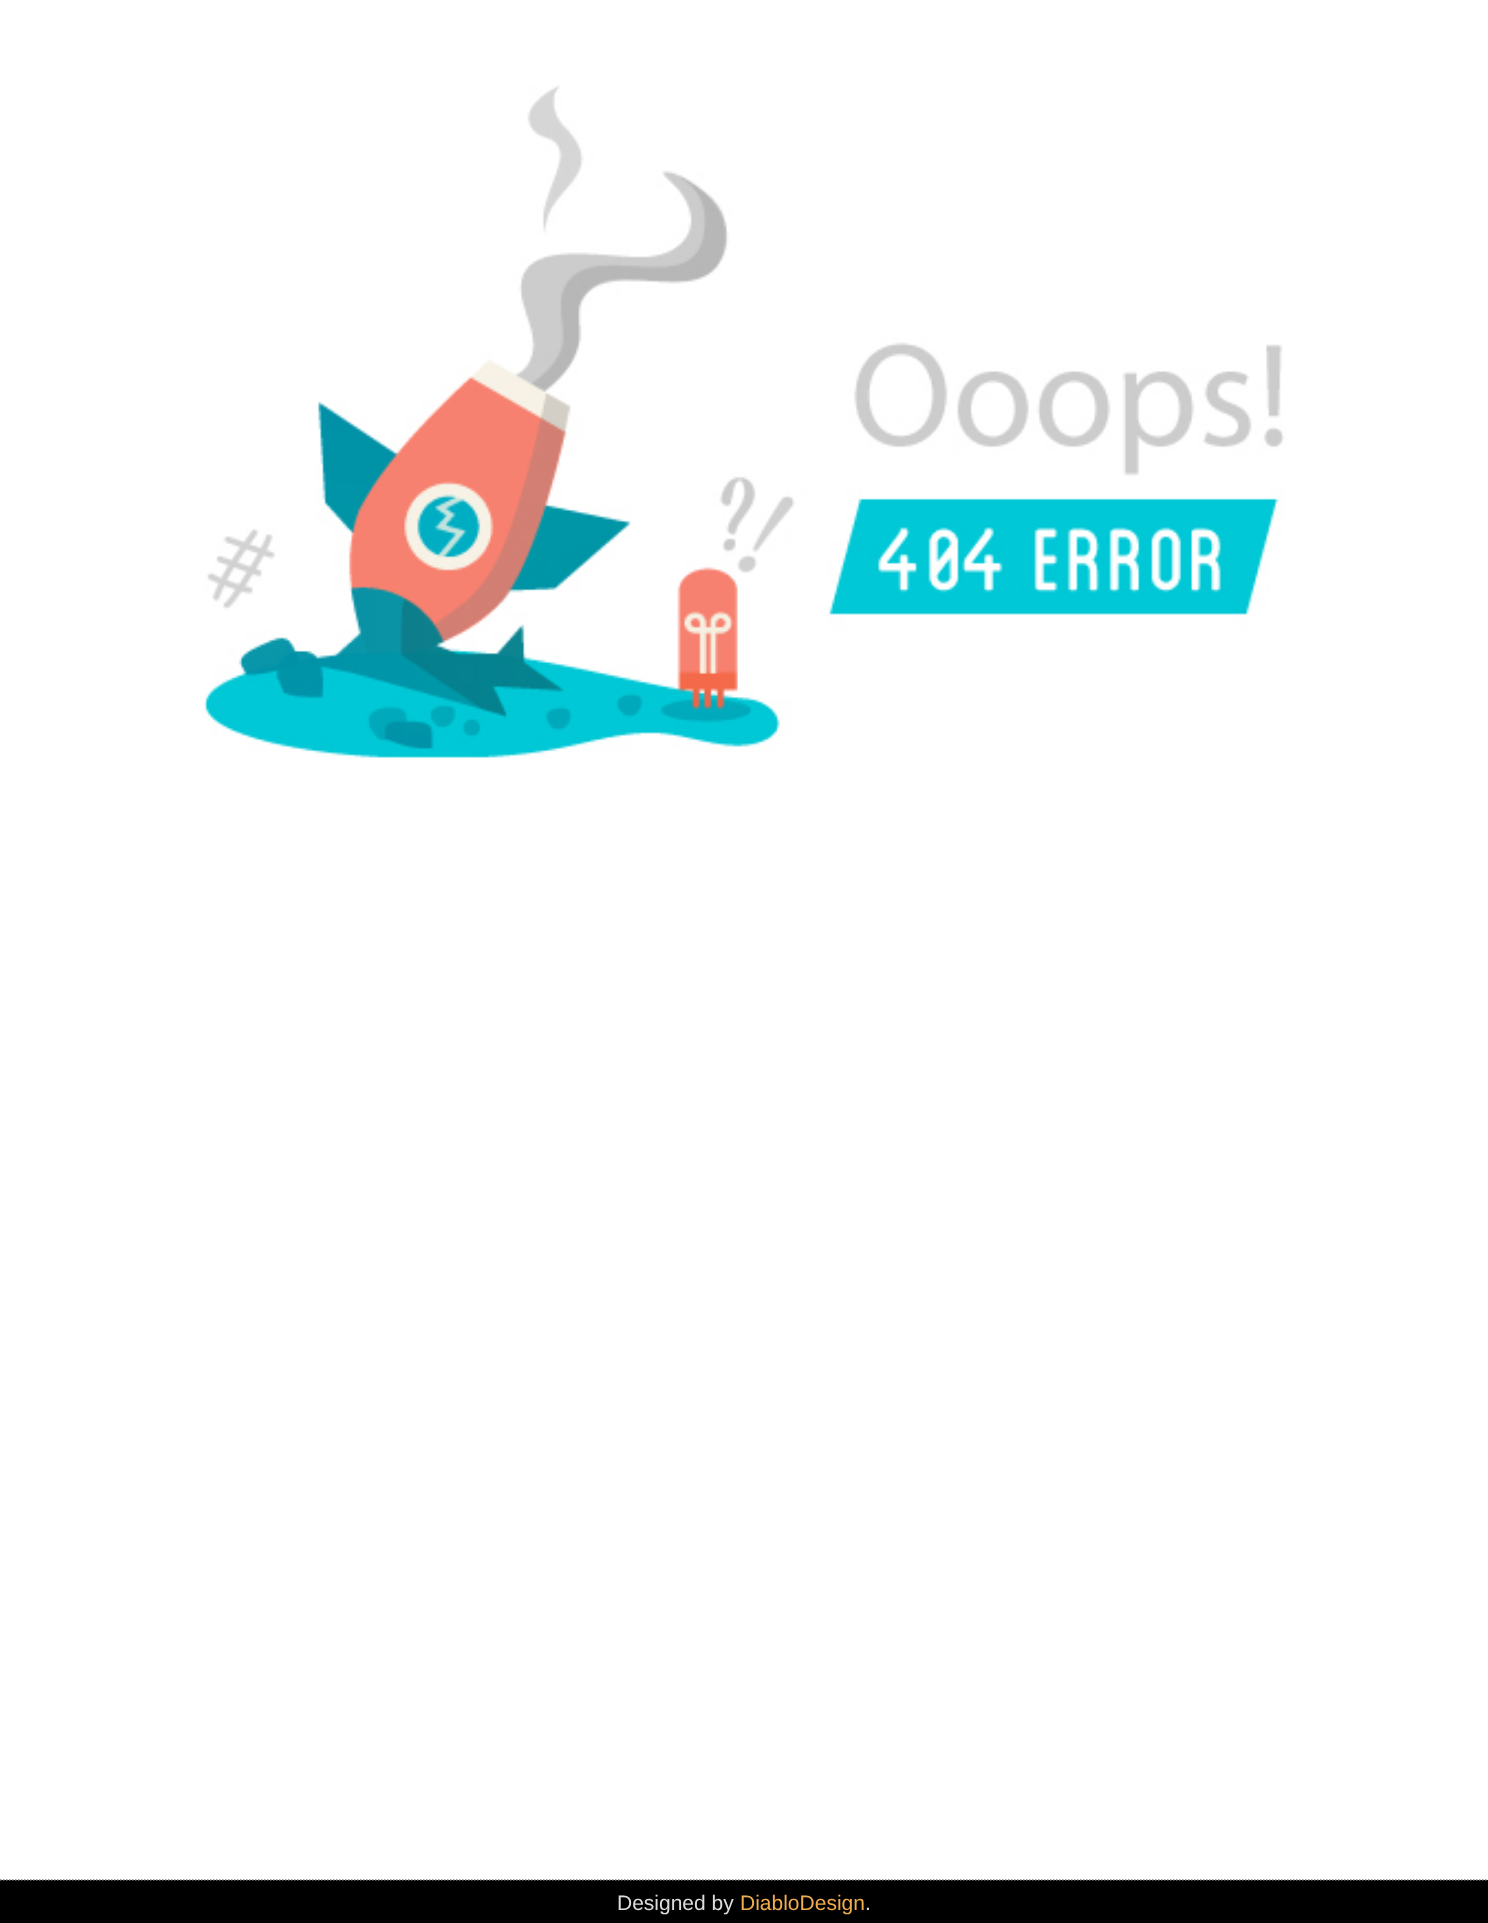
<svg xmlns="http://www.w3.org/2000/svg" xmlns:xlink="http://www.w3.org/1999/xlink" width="1488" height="1923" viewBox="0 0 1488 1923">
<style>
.cls-1{font:21px Liberation Sans;fill:#dddddd}
.cls-2{font:21px Liberation Sans;fill:#f0ad4e}
</style>
<rect width="100%" height="100%" fill="#ffffff"/>
<image xlink:href="image0.png" x="203" y="85" width="1082" height="673"/>
<rect fill="#000000" x="0" y="1880" width="1488" height="43"/>
<path fill="none" stroke="#777777" stroke-width="1.5" stroke-dasharray="1.5 1.5" d="M0 1880H1488"/>
<text class="cls-1" x="617" y="1910">Designed by</text>
<text class="cls-2" x="740" y="1910">DiabloDesign</text>
<text class="cls-1" x="865" y="1910">.</text>
</svg>
